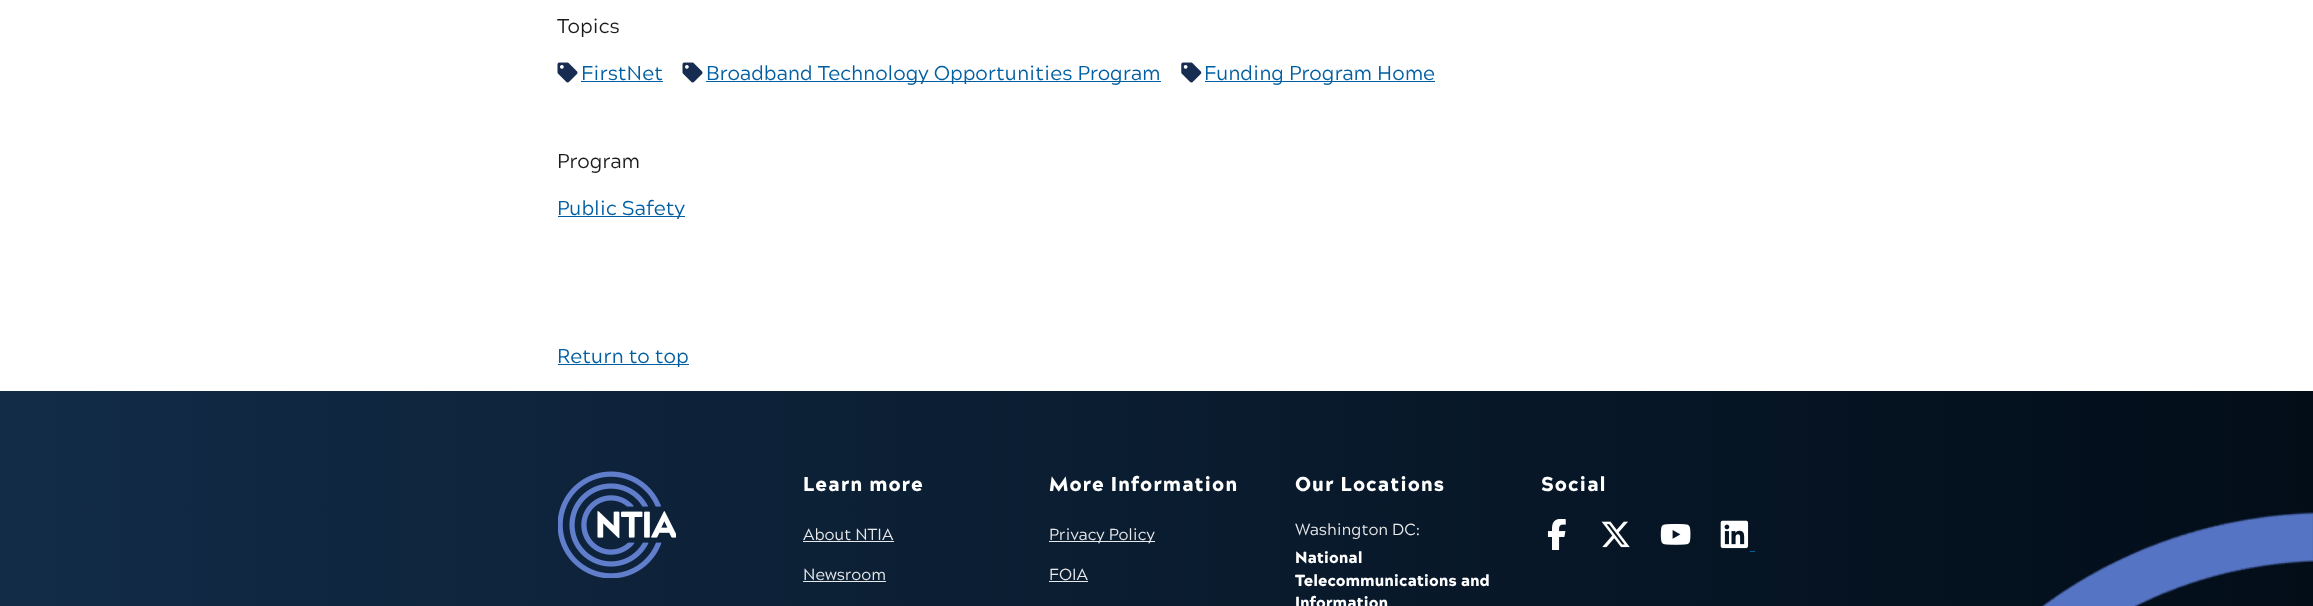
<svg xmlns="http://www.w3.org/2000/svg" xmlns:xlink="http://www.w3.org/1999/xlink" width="2313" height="606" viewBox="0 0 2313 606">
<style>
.cls-1{font:20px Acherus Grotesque;fill:#1b1b1b}
.cls-2{font:20px Acherus Grotesque;fill:#005ea2}
.cls-3{font:900 20px Acherus Grotesque;letter-spacing:1px;fill:#ffffff}
.cls-4{font:16px Acherus Grotesque;fill:#e8e9ea}
.cls-5{font:900 16px Acherus Grotesque;fill:#ffffff}
</style>
<defs>
<linearGradient id="g1" gradientUnits="userSpaceOnUse" x1="0" y1="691" x2="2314" y2="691"><stop offset="0" stop-color="#122b47"/><stop offset="1" stop-color="#020d18"/></linearGradient>
</defs>
<rect width="100%" height="100%" fill="#ffffff"/>
<image xlink:href="image0.png" x="557" y="62" width="21" height="21"/>
<rect fill="#005ea2" x="581" y="81" width="82" height="1"/>
<image xlink:href="image0.png" x="682" y="62" width="21" height="21"/>
<rect fill="#005ea2" x="706" y="81" width="455" height="1"/>
<image xlink:href="image1.png" x="1181" y="62" width="21" height="21"/>
<rect fill="#005ea2" x="1205" y="81" width="230" height="1"/>
<rect fill="#005ea2" x="558" y="216" width="127" height="1"/>
<rect fill="#005ea2" x="558" y="364" width="131" height="1"/>
<rect fill="url(#g1)" x="0" y="391" width="2313" height="215"/>
<image xlink:href="image2.png" x="558" y="471" width="118" height="107"/>
<rect fill="#e8e9ea" x="803" y="541" width="91" height="1"/>
<rect fill="#e8e9ea" x="803" y="581" width="83" height="1"/>
<rect fill="#e8e9ea" x="1049" y="541" width="106" height="1"/>
<rect fill="#e8e9ea" x="1049" y="581" width="39" height="1"/>
<image xlink:href="image3.png" x="1547" y="519" width="19" height="31"/>
<image xlink:href="image4.png" x="1601" y="521" width="29" height="27"/>
<image xlink:href="image5.png" x="1660" y="523" width="31" height="22"/>
<image xlink:href="image6.png" x="1720" y="520" width="29" height="29"/>
<rect fill="#005ea2" x="1750" y="551" width="5" height="1"/>
<image xlink:href="image7.png" x="2041" y="512" width="272" height="94"/>
<text class="cls-1" x="557" y="33">Topics</text>
<text class="cls-2" x="581" y="80">FirstNet</text>
<text class="cls-2" x="706" y="80">Broadband Technology Opportunities Program</text>
<text class="cls-2" x="1204" y="80">Funding Program Home</text>
<text class="cls-1" x="557" y="168">Program</text>
<text class="cls-2" x="557" y="215">Public Safety</text>
<text class="cls-2" x="557" y="363">Return to top</text>
<text class="cls-3" x="803" y="491">Learn more</text>
<text class="cls-4" x="803" y="540">About NTIA</text>
<text class="cls-4" x="803" y="580">Newsroom</text>
<text class="cls-3" x="1049" y="491">More Information</text>
<text class="cls-4" x="1049" y="540">Privacy Policy</text>
<text class="cls-4" x="1049" y="580">FOIA</text>
<text class="cls-3" x="1295" y="491">Our Locations</text>
<text class="cls-4" x="1295" y="535">Washington DC:</text>
<text class="cls-5"><tspan x="1295" y="563">National</tspan><tspan x="1295" y="586">Telecommunications and</tspan><tspan x="1295" y="608">Information</tspan></text>
<text class="cls-3" x="1541" y="491">Social</text>
</svg>
